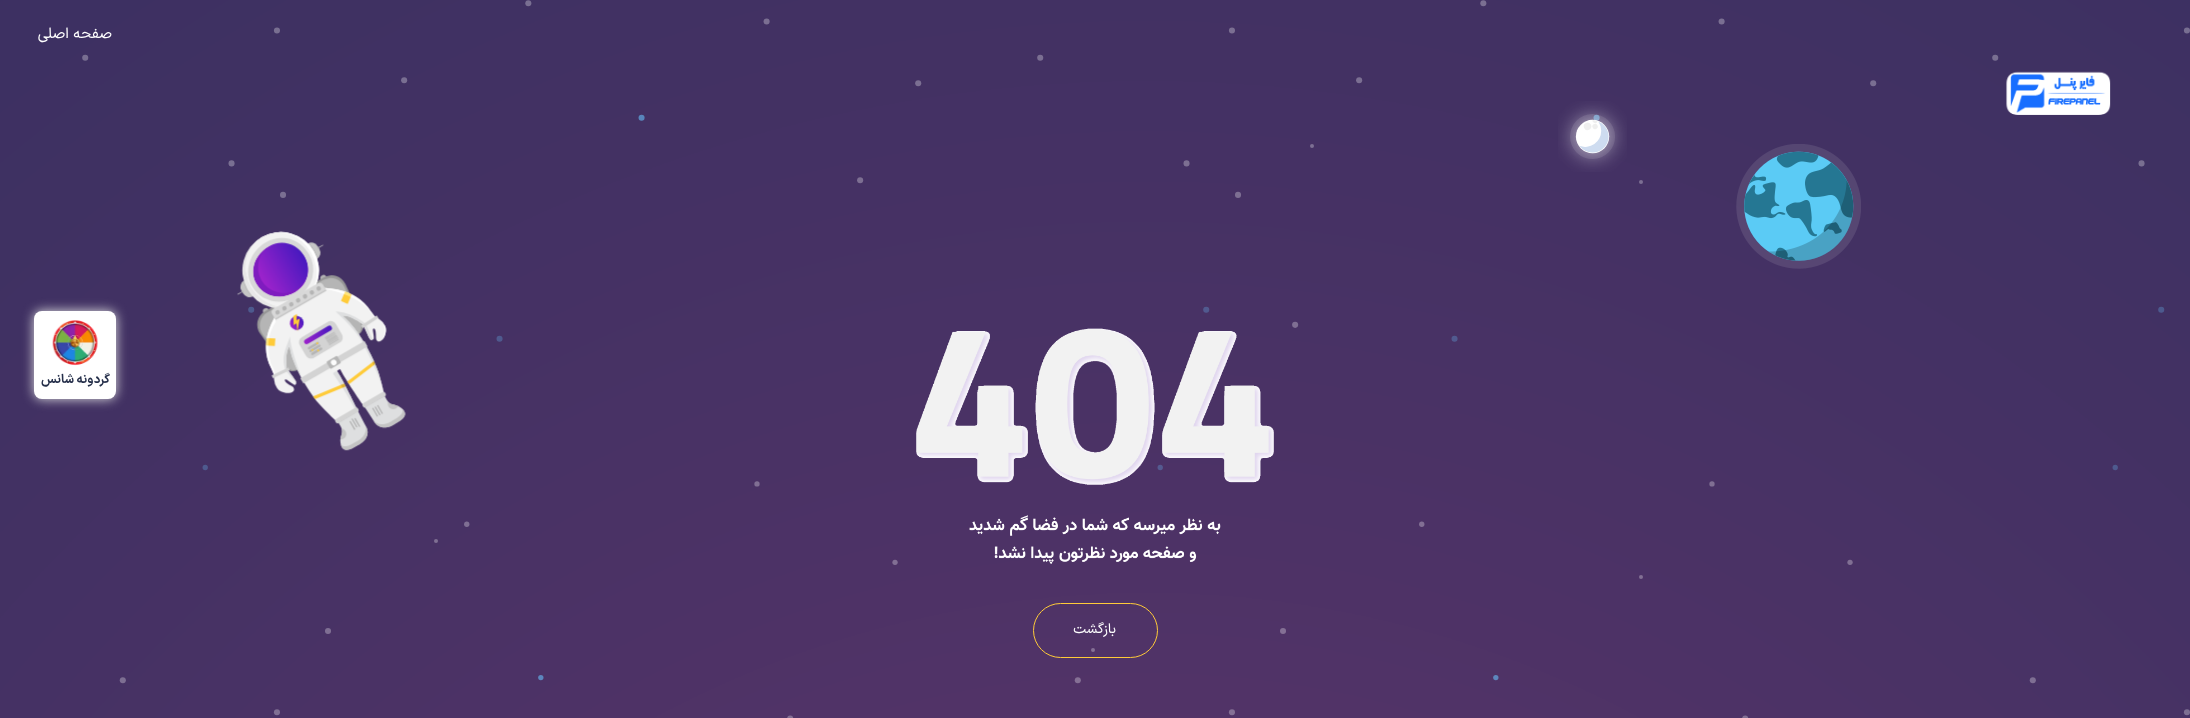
<svg xmlns="http://www.w3.org/2000/svg" xmlns:xlink="http://www.w3.org/1999/xlink" width="2190" height="718" viewBox="0 0 2190 718">
<style>
.cls-1{font:15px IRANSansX;direction:rtl;fill:#ffffff}
.cls-2{font:14px IRANSansX;direction:rtl;fill:#ffffff}
.cls-3{font:bold 12.5px IRANSansX;direction:rtl;fill:#252f4a}
</style>
<rect width="100%" height="100%" fill="#ffffff"/>
<image xlink:href="image0.png" x="0" y="0" width="2190" height="718"/>
<image xlink:href="image1.png" x="82" y="0" width="2108" height="718"/>
<image xlink:href="image2.png" x="2006" y="71" width="105" height="44"/>
<image xlink:href="image3.png" x="1558" y="101" width="69" height="71"/>
<image xlink:href="image4.png" x="1736" y="144" width="125" height="125"/>
<image xlink:href="image5.png" x="237" y="231" width="169" height="220"/>
<circle fill="#7d6f93" cx="1312" cy="146" r="2"/>
<circle fill="#7c6f93" cx="1641" cy="182" r="2"/>
<circle fill="#7f7093" cx="436" cy="541" r="2"/>
<circle fill="#827094" cx="1641" cy="577" r="2"/>
<circle fill="#857095" cx="1093" cy="650" r="2"/>
<image xlink:href="image6.png" x="916" y="328" width="358" height="236"/>
<rect fill="none" stroke="#ffcb39" x="1033.5" y="603.5" width="124" height="54" rx="27"/>
<rect fill="#e0e0e0" filter="blur(6px)" x="34" y="311" width="82" height="88" rx="8"/>
<rect fill="#ffffff" x="34" y="311" width="82" height="88" rx="8"/>
<image xlink:href="image7.png" x="52" y="320" width="46" height="46"/>
<text class="cls-1" x="112" y="38">صفحه اصلی</text>
<text class="cls-2" x="1116" y="633">بازگشت</text>
<text class="cls-3" x="110" y="383">گردونه شانس</text>
</svg>
